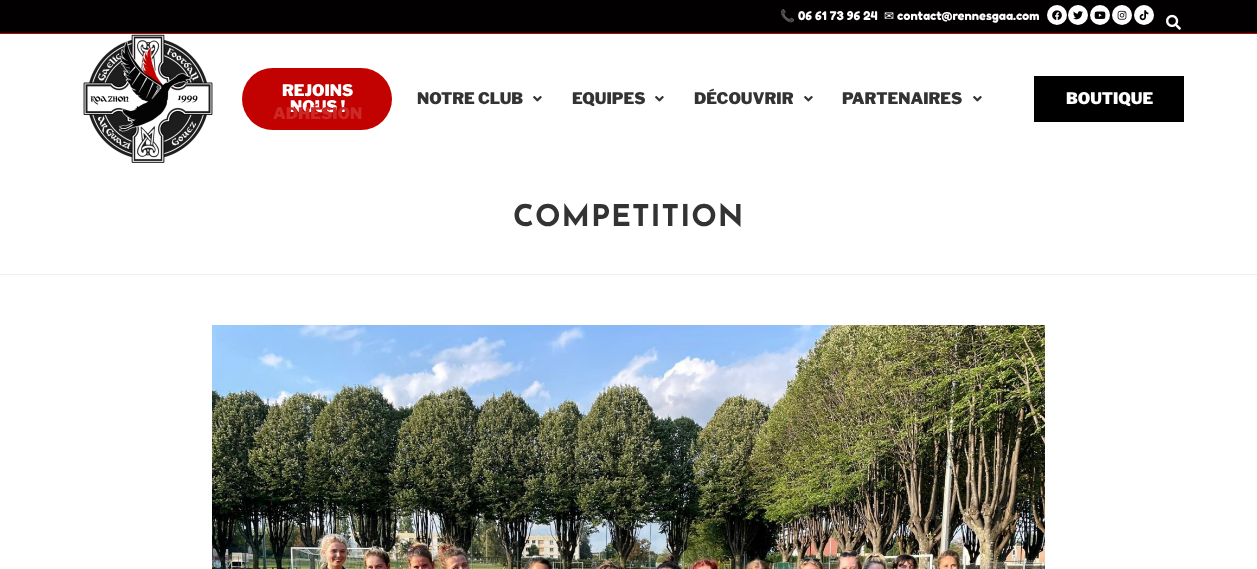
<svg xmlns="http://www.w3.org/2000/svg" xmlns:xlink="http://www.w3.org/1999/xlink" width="1257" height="569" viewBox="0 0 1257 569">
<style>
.cls-1{font:12px Noto Color Emoji;fill:#ffffff}
.cls-2{font:12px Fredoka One;fill:#ffffff}
.cls-3{font:12px DejaVu Sans;fill:#ffffff}
.cls-4{font:900 16px Libre Franklin;fill:#ffffff}
.cls-5{font:900 16px Libre Franklin;fill:#cb2826}
.cls-6{font:900 16px Libre Franklin;fill:#333333}
.cls-7{font:bold 30px Josefin Sans;letter-spacing:1px;fill:#333333}
</style>
<rect width="100%" height="100%" fill="#ffffff"/>
<rect fill="#020000" x="0" y="0" width="1257" height="33"/>
<rect fill="#c20200" x="0" y="33" width="1257" height="1"/>
<circle fill="#ffffff" cx="1057" cy="15" r="10"/>
<image xlink:href="image0.png" x="1052" y="10" width="10" height="10"/>
<circle fill="#ffffff" cx="1078" cy="15" r="10"/>
<image xlink:href="image1.png" x="1073" y="11" width="10" height="9"/>
<circle fill="#ffffff" cx="1100" cy="15" r="10"/>
<image xlink:href="image2.png" x="1094" y="11" width="12" height="8"/>
<circle fill="#ffffff" cx="1122" cy="15" r="10"/>
<image xlink:href="image3.png" x="1117" y="10" width="10" height="10"/>
<circle fill="#ffffff" cx="1144" cy="15" r="10"/>
<image xlink:href="image4.png" x="1139" y="10" width="10" height="11"/>
<image xlink:href="image5.png" x="1166" y="14" width="15" height="16"/>
<image xlink:href="image6.png" x="83" y="34" width="130" height="129"/>
<rect fill="#c20200" x="242" y="68" width="150" height="62" rx="31"/>
<image xlink:href="image7.png" x="533" y="96" width="9" height="6"/>
<image xlink:href="image7.png" x="655" y="96" width="9" height="6"/>
<image xlink:href="image7.png" x="804" y="96" width="9" height="6"/>
<image xlink:href="image7.png" x="973" y="96" width="9" height="6"/>
<rect fill="#000000" x="1034" y="76" width="150" height="46"/>
<rect fill="#eeeeee" x="0" y="274" width="1257" height="1"/>
<image xlink:href="image8.png" x="212" y="325" width="833" height="244"/>
<text class="cls-1" x="780" y="20">📞</text>
<text class="cls-2" x="798" y="20">06 61 73 96 24</text>
<text class="cls-3" x="884" y="20">✉</text>
<text class="cls-2" x="897" y="20">contact@rennesgaa.com</text>
<text class="cls-4" x="282" y="96">REJOINS</text>
<text class="cls-4" x="290" y="112">NOUS !</text>
<text class="cls-5" x="273" y="119">ADHÉSION</text>
<text class="cls-6" x="417" y="104">NOTRE CLUB</text>
<text class="cls-6" x="572" y="104">EQUIPES</text>
<text class="cls-6" x="694" y="104">DÉCOUVRIR</text>
<text class="cls-6" x="842" y="104">PARTENAIRES</text>
<text class="cls-4" x="1066" y="104">BOUTIQUE</text>
<text class="cls-7" x="513" y="226">COMPETITION</text>
</svg>
